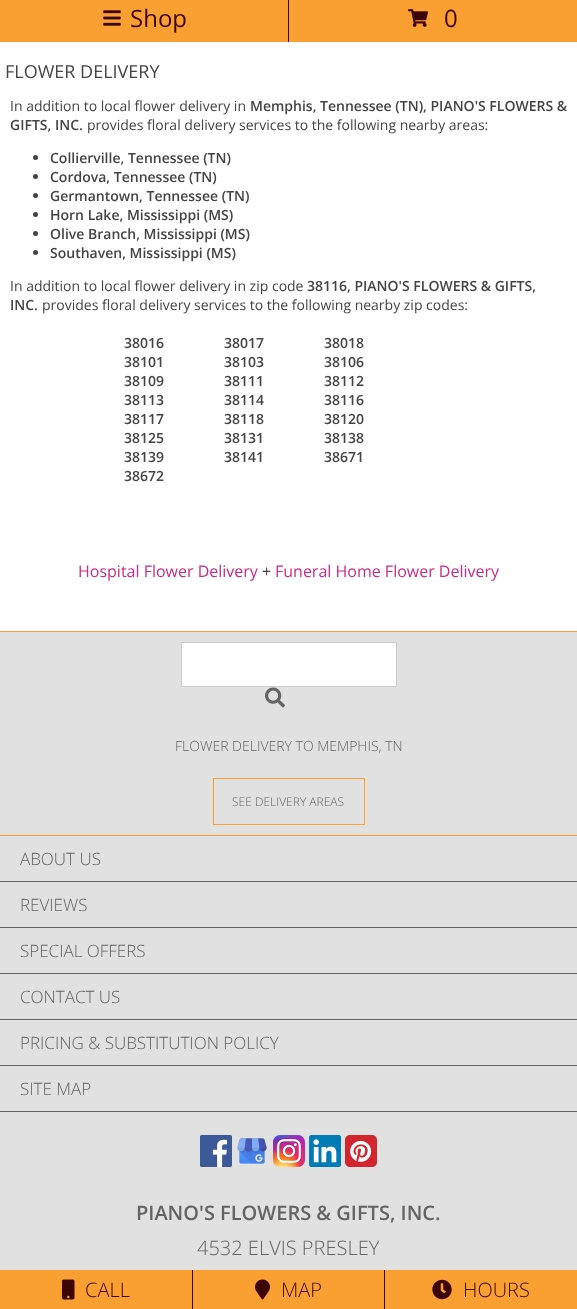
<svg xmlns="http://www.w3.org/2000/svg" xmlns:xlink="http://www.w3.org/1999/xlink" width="577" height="1309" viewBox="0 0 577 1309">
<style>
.cls-1{font:24px Open Sans;fill:#3d0505}
.cls-2{font:18px Open Sans;fill:#444444}
.cls-3{font:14px Open Sans;fill:#444444}
.cls-4{font:600 14px Open Sans;fill:#444444}
.cls-5{font:16px Open Sans;fill:#cd2985}
.cls-6{font:16px Open Sans;fill:#444444}
.cls-7{font:300 14px Open Sans;fill:#636363}
.cls-8{font:300 12px Open Sans;fill:#636363}
.cls-9{font:300 17px Open Sans;fill:#636363}
.cls-10{font:600 20px Open Sans;fill:#636363}
.cls-11{font:300 20px Open Sans;fill:#636363}
.cls-12{font:300 20px Open Sans;fill:#3d0505}
</style>
<rect width="100%" height="100%" fill="#ffffff"/>
<rect fill="#3d0505" x="288" y="0" width="1" height="42"/>
<rect fill="#faa033" x="0" y="0" width="288" height="42"/>
<image xlink:href="image0.png" x="103" y="10" width="18" height="16"/>
<rect fill="#faa033" x="289" y="0" width="288" height="42"/>
<image xlink:href="image1.png" x="408" y="9" width="20" height="18"/>
<circle fill="#444444" cx="35.5" cy="157.5" r="2.5"/>
<circle fill="#444444" cx="35.5" cy="176.5" r="2.5"/>
<circle fill="#444444" cx="35.5" cy="195.5" r="2.5"/>
<circle fill="#444444" cx="35.5" cy="214.5" r="2.5"/>
<circle fill="#444444" cx="35.5" cy="233.5" r="2.5"/>
<circle fill="#444444" cx="35.5" cy="252.5" r="2.5"/>
<rect fill="#e1e1e1" x="0" y="632" width="577" height="203"/>
<rect fill="#faa033" x="0" y="631" width="577" height="1"/>
<rect fill="#faa033" x="0" y="835" width="577" height="1"/>
<rect fill="#ffffff" stroke="#cccccc" x="181.5" y="642.5" width="215" height="44"/>
<image xlink:href="image2.png" x="265" y="687" width="20" height="21"/>
<rect fill="none" stroke="#faa033" x="213.5" y="778.5" width="151" height="46"/>
<rect fill="#e1e1e1" x="0" y="836" width="577" height="434"/>
<rect fill="#636363" x="0" y="881" width="577" height="1"/>
<rect fill="#636363" x="0" y="927" width="577" height="1"/>
<rect fill="#636363" x="0" y="973" width="577" height="1"/>
<rect fill="#636363" x="0" y="1019" width="577" height="1"/>
<rect fill="#636363" x="0" y="1065" width="577" height="1"/>
<rect fill="#636363" x="0" y="1111" width="577" height="1"/>
<image xlink:href="image3.png" x="200" y="1135" width="32" height="32"/>
<image xlink:href="image4.png" x="237" y="1138" width="30" height="26"/>
<image xlink:href="image5.png" x="273" y="1135" width="32" height="32"/>
<image xlink:href="image6.png" x="309" y="1135" width="32" height="32"/>
<image xlink:href="image7.png" x="345" y="1135" width="32" height="32"/>
<rect fill="#faa033" x="0" y="1270" width="192" height="39"/>
<image xlink:href="image8.png" x="62" y="1279" width="13" height="21"/>
<rect fill="#faa033" x="193" y="1270" width="191" height="39"/>
<rect fill="#3d0505" x="192" y="1270" width="1" height="39"/>
<image xlink:href="image9.png" x="255" y="1279" width="15" height="21"/>
<rect fill="#faa033" x="385" y="1270" width="192" height="39"/>
<rect fill="#3d0505" x="384" y="1270" width="1" height="39"/>
<image xlink:href="image10.png" x="432" y="1279" width="20" height="21"/>
<text class="cls-1" x="130" y="27">Shop</text>
<text class="cls-1" x="444" y="27">0</text>
<text class="cls-2" x="5" y="78">FLOWER DELIVERY</text>
<text class="cls-3" x="10" y="111">In addition to local flower delivery in</text>
<text class="cls-4" x="250" y="111">Memphis, Tennessee (TN), PIANO'S FLOWERS &amp;</text>
<text class="cls-4" x="10" y="130">GIFTS, INC.</text>
<text class="cls-3" x="87" y="130">provides floral delivery services to the following nearby areas:</text>
<text class="cls-4"><tspan x="50" y="163">Collierville, Tennessee (TN)</tspan><tspan x="50" y="182">Cordova, Tennessee (TN)</tspan><tspan x="50" y="201">Germantown, Tennessee (TN)</tspan><tspan x="50" y="220">Horn Lake, Mississippi (MS)</tspan><tspan x="50" y="239">Olive Branch, Mississippi (MS)</tspan><tspan x="50" y="258">Southaven, Mississippi (MS)</tspan></text>
<text class="cls-3" x="10" y="291">In addition to local flower delivery in zip code</text>
<text class="cls-4" x="307" y="291">38116, PIANO'S FLOWERS &amp; GIFTS,</text>
<text class="cls-4" x="10" y="310">INC.</text>
<text class="cls-3" x="42" y="310">provides floral delivery services to the following nearby zip codes:</text>
<text class="cls-4" x="124" y="348">38016</text>
<text class="cls-4" x="224" y="348">38017</text>
<text class="cls-4" x="324" y="348">38018</text>
<text class="cls-4" x="124" y="367">38101</text>
<text class="cls-4" x="224" y="367">38103</text>
<text class="cls-4" x="324" y="367">38106</text>
<text class="cls-4" x="124" y="386">38109</text>
<text class="cls-4" x="224" y="386">38111</text>
<text class="cls-4" x="324" y="386">38112</text>
<text class="cls-4" x="124" y="405">38113</text>
<text class="cls-4" x="224" y="405">38114</text>
<text class="cls-4" x="324" y="405">38116</text>
<text class="cls-4" x="124" y="424">38117</text>
<text class="cls-4" x="224" y="424">38118</text>
<text class="cls-4" x="324" y="424">38120</text>
<text class="cls-4" x="124" y="443">38125</text>
<text class="cls-4" x="224" y="443">38131</text>
<text class="cls-4" x="324" y="443">38138</text>
<text class="cls-4" x="124" y="462">38139</text>
<text class="cls-4" x="224" y="462">38141</text>
<text class="cls-4" x="324" y="462">38671</text>
<text class="cls-4" x="124" y="481">38672</text>
<text class="cls-5" x="78" y="577">Hospital Flower Delivery</text>
<text class="cls-6" x="262" y="577">+</text>
<text class="cls-5" x="275" y="577">Funeral Home Flower Delivery</text>
<text class="cls-7" x="175" y="751">FLOWER DELIVERY TO MEMPHIS, TN</text>
<text class="cls-8" x="232" y="806">SEE DELIVERY AREAS</text>
<text class="cls-9" x="20" y="865">ABOUT US</text>
<text class="cls-9" x="20" y="911">REVIEWS</text>
<text class="cls-9" x="20" y="957">SPECIAL OFFERS</text>
<text class="cls-9" x="20" y="1003">CONTACT US</text>
<text class="cls-9" x="20" y="1049">PRICING &amp; SUBSTITUTION POLICY</text>
<text class="cls-9" x="20" y="1095">SITE MAP</text>
<text class="cls-10" x="136" y="1220">PIANO'S FLOWERS &amp; GIFTS, INC.</text>
<text class="cls-11" x="197" y="1255">4532 ELVIS PRESLEY</text>
<text class="cls-12" x="85" y="1297">CALL</text>
<text class="cls-12" x="281" y="1297">MAP</text>
<text class="cls-12" x="463" y="1297">HOURS</text>
</svg>
